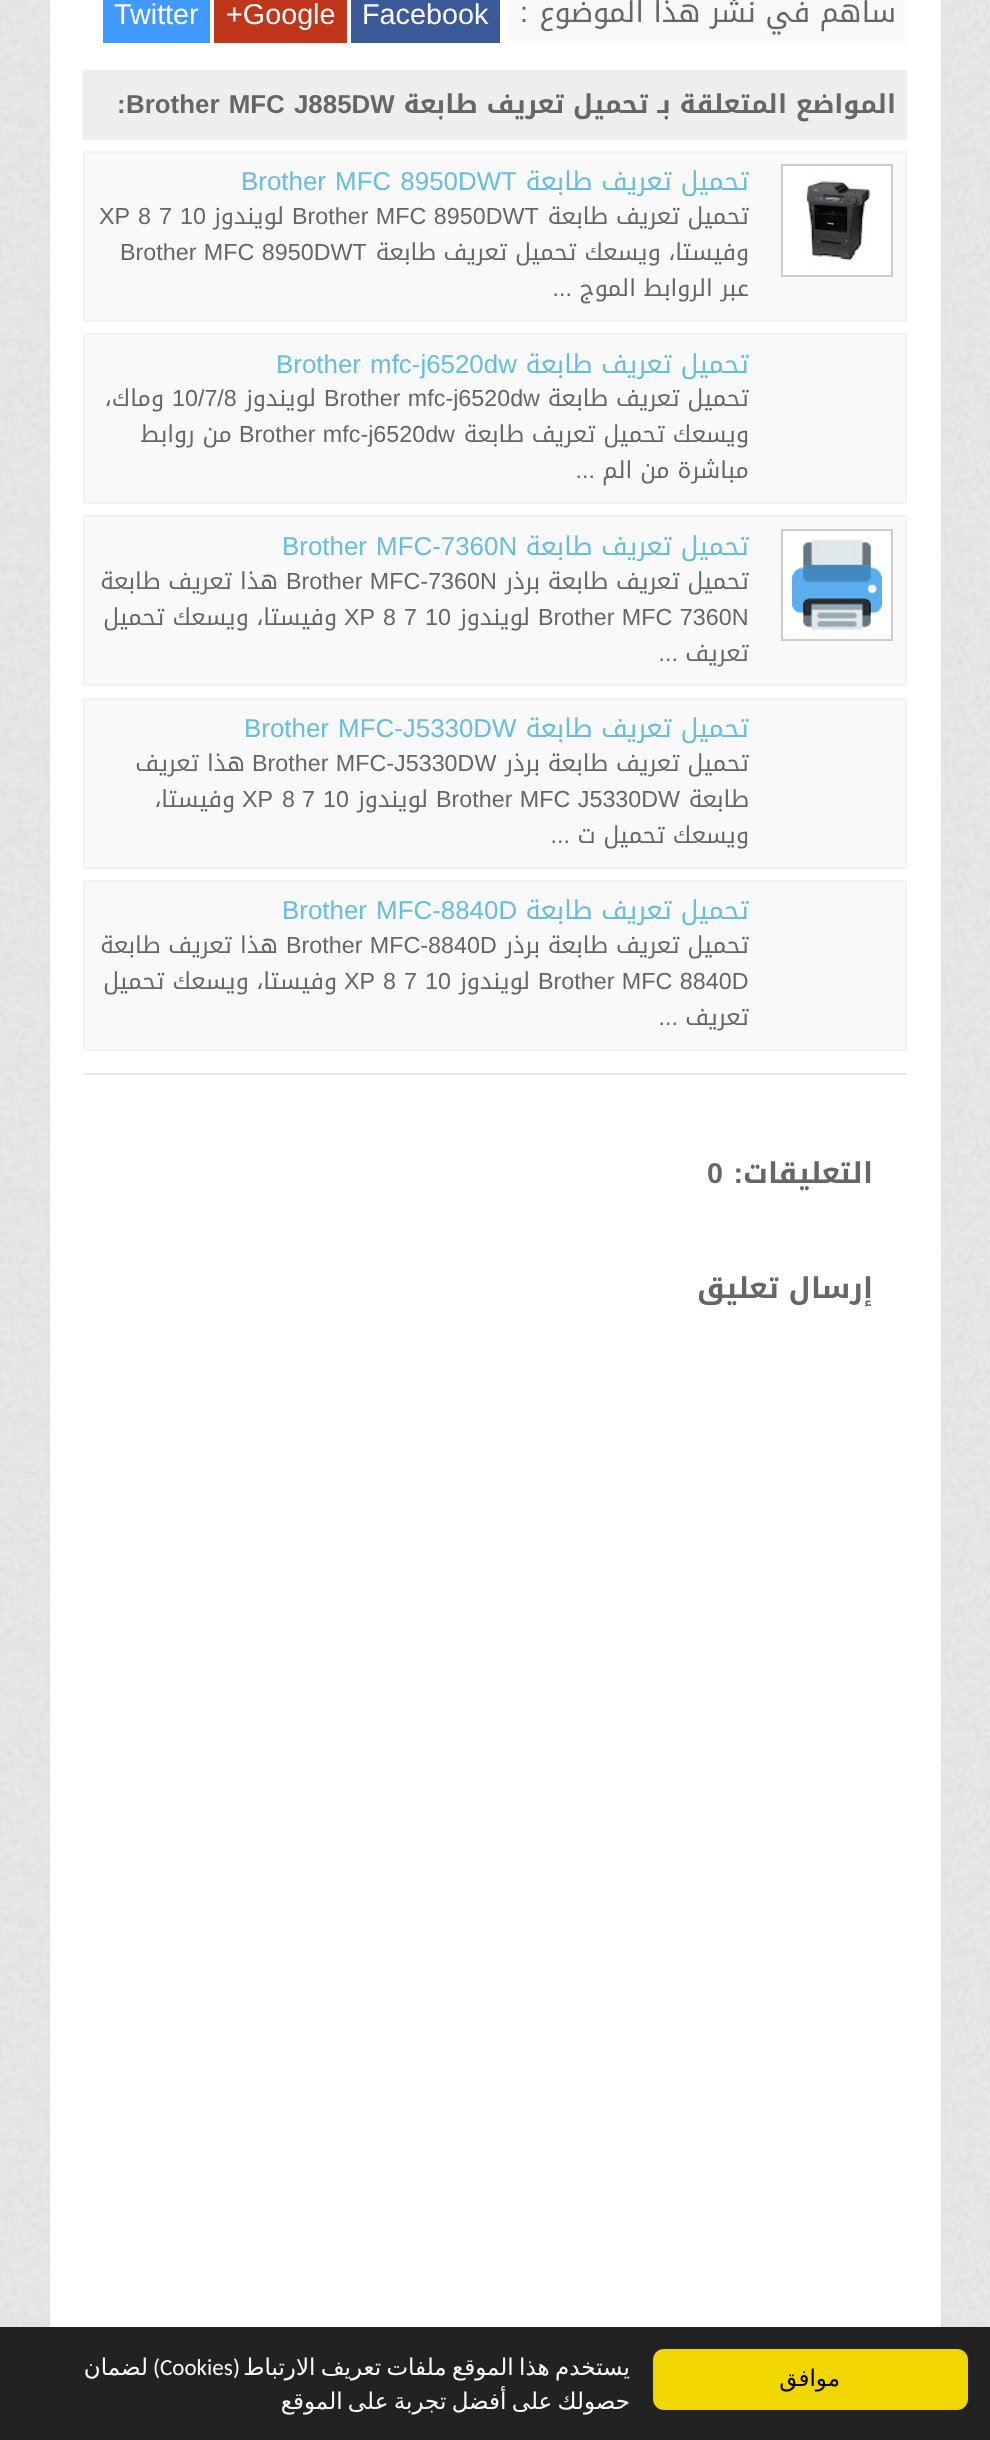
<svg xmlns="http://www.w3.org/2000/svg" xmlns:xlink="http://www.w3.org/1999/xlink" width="990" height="2440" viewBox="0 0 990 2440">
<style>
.cls-1{font:28.75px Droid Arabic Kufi;direction:rtl;fill:#666666}
.cls-2{font:28.75px Liberation Sans;direction:rtl;fill:#666666}
.cls-3{font:28.75px Liberation Sans;fill:#fafafa}
.cls-4{font:bold 25.9px Droid Arabic Kufi;direction:rtl;fill:#666666}
.cls-5{font:bold 25.9px Liberation Sans;fill:#666666}
.cls-6{font:25.9px Droid Arabic Kufi;direction:rtl;fill:#65bddf}
.cls-7{font:25.9px Liberation Sans;fill:#65bddf}
.cls-8{font:23.3px Droid Arabic Kufi;direction:rtl;fill:#666666}
.cls-9{font:23.3px Liberation Sans;fill:#666666}
.cls-10{font:23.3px Liberation Sans;direction:rtl;fill:#666666}
.cls-11{font:bold 28.75px Droid Arabic Kufi;direction:rtl;fill:#666666}
.cls-12{font:bold 28.75px Liberation Sans;direction:rtl;fill:#666666}
.cls-13{font:bold 28.75px Liberation Sans;fill:#666666}
.cls-14{font:23px DejaVu Sans;direction:rtl;fill:#000000}
.cls-15{font:23px DejaVu Sans;direction:rtl;fill:#fafafa}
.cls-16{font:23px Carlito;direction:rtl;fill:#fafafa}
.cls-17{font:23px Carlito;fill:#fafafa}
</style>
<rect width="100%" height="100%" fill="#ffffff"/>
<image xlink:href="image0.png" x="0" y="0" width="990" height="2327"/>
<rect fill="#ffffff" x="50" y="0" width="891" height="2327"/>
<rect fill="#f9f9f9" x="509" y="0" width="398" height="41"/>
<rect fill="#3b5998" x="351" y="0" width="149" height="43"/>
<rect fill="#c0361a" x="214" y="0" width="133" height="43"/>
<rect fill="#4099ff" x="103" y="0" width="107" height="43"/>
<rect fill="#eeeeee" x="83" y="70" width="824" height="70"/>
<rect fill="#f9f9f9" stroke="#f4f3f3" stroke-width="2" x="84" y="152" width="822" height="169"/>
<rect fill="#ffffff" stroke="#cccccc" stroke-width="2" x="782" y="165" width="110" height="111"/>
<image xlink:href="image1.png" x="802" y="175" width="70" height="90"/>
<rect fill="#f9f9f9" stroke="#f4f3f3" stroke-width="2" x="84" y="334" width="822" height="169"/>
<rect fill="#f9f9f9" stroke="#f4f3f3" stroke-width="2" x="84" y="516" width="822" height="169"/>
<rect fill="#ffffff" stroke="#cccccc" stroke-width="2" x="782" y="530" width="110" height="110"/>
<image xlink:href="image2.png" x="792" y="539" width="90" height="91"/>
<rect fill="#f9f9f9" stroke="#f4f3f3" stroke-width="2" x="84" y="699" width="822" height="169"/>
<rect fill="#f9f9f9" stroke="#f4f3f3" stroke-width="2" x="84" y="881" width="822" height="169"/>
<rect fill="#ebebeb" x="83" y="1073" width="824" height="2"/>
<rect fill="#222222" x="0" y="2327" width="990" height="113"/>
<rect fill="#f1d600" x="653" y="2349" width="315" height="61" rx="11"/>
<text class="cls-1" x="896" y="22">ساهم في نشر هذا الموضوع</text>
<text class="cls-2" x="528" y="22">:</text>
<text class="cls-3" x="362" y="24">Facebook</text>
<text class="cls-3" x="226" y="24">+Google</text>
<text class="cls-3" x="114" y="24">Twitter</text>
<text class="cls-4" x="896" y="113">المواضع المتعلقة بـ تحميل تعريف طابعة</text>
<text class="cls-5" x="126" y="113" word-spacing="2">Brother MFC J885DW</text>
<text class="cls-5" x="117" y="113">:</text>
<text class="cls-6" x="749" y="190">تحميل تعريف طابعة</text>
<text class="cls-7" x="241" y="190" word-spacing="2">Brother MFC 8950DWT</text>
<text class="cls-8" x="749" y="224">تحميل تعريف طابعة</text>
<text class="cls-9" x="292" y="224" word-spacing="1">Brother MFC 8950DWT</text>
<text class="cls-8" x="284" y="224">لويندوز</text>
<text class="cls-9" x="180" y="224">10</text>
<text class="cls-9" x="159" y="224">7</text>
<text class="cls-9" x="138" y="224">8</text>
<text class="cls-9" x="99" y="224">XP</text>
<text class="cls-8" x="749" y="260">وفيستا، ويسعك تحميل تعريف</text>
<text class="cls-8" x="436" y="260">طابعة</text>
<text class="cls-9" x="120" y="260" word-spacing="1">Brother MFC 8950DWT</text>
<text class="cls-8" x="749" y="296">عبر الروابط الموج</text>
<text class="cls-10" x="572" y="296">...</text>
<text class="cls-6" x="749" y="373">تحميل تعريف طابعة</text>
<text class="cls-7" x="276" y="373" word-spacing="2">Brother mfc-j6520dw</text>
<text class="cls-8" x="749" y="406">تحميل تعريف طابعة</text>
<text class="cls-9" x="324" y="406" word-spacing="1">Brother mfc-j6520dw</text>
<text class="cls-8" x="316" y="406">لويندوز</text>
<text class="cls-9" x="172" y="406">10/7/8</text>
<text class="cls-8" x="164" y="406">وماك،</text>
<text class="cls-8" x="749" y="442">ويسعك تحميل تعريف</text>
<text class="cls-8" x="524" y="442">طابعة</text>
<text class="cls-9" x="239" y="442" word-spacing="1">Brother mfc-j6520dw</text>
<text class="cls-8" x="232" y="442">من روابط</text>
<text class="cls-8" x="749" y="478">مباشرة من الم</text>
<text class="cls-10" x="595" y="478">...</text>
<text class="cls-6" x="749" y="555">تحميل تعريف طابعة</text>
<text class="cls-7" x="282" y="555" word-spacing="2">Brother MFC-7360N</text>
<text class="cls-8" x="749" y="589">تحميل تعريف طابعة برذر</text>
<text class="cls-9" x="286" y="589" word-spacing="1">Brother MFC-7360N</text>
<text class="cls-8" x="278" y="589">هذا تعريف طابعة</text>
<text class="cls-9" x="538" y="625" word-spacing="1">Brother MFC 7360N</text>
<text class="cls-8" x="530" y="625">لويندوز</text>
<text class="cls-9" x="425" y="625">10</text>
<text class="cls-9" x="404" y="625">7</text>
<text class="cls-9" x="383" y="625">8</text>
<text class="cls-9" x="344" y="625">XP</text>
<text class="cls-8" x="337" y="625">وفيستا، ويسعك تحميل</text>
<text class="cls-8" x="749" y="661">تعريف</text>
<text class="cls-10" x="678" y="661">...</text>
<text class="cls-6" x="749" y="737">تحميل تعريف طابعة</text>
<text class="cls-7" x="244" y="737" word-spacing="2">Brother MFC-J5330DW</text>
<text class="cls-8" x="749" y="771">تحميل تعريف طابعة برذر</text>
<text class="cls-9" x="252" y="771" word-spacing="1">Brother MFC-J5330DW</text>
<text class="cls-8" x="245" y="771">هذا تعريف</text>
<text class="cls-8" x="749" y="807">طابعة</text>
<text class="cls-9" x="436" y="807" word-spacing="1">Brother MFC J5330DW</text>
<text class="cls-8" x="428" y="807">لويندوز</text>
<text class="cls-9" x="323" y="807">10</text>
<text class="cls-9" x="302" y="807">7</text>
<text class="cls-9" x="282" y="807">8</text>
<text class="cls-9" x="242" y="807">XP</text>
<text class="cls-8" x="235" y="807">وفيستا،</text>
<text class="cls-8" x="749" y="843">ويسعك تحميل ت</text>
<text class="cls-10" x="570" y="843">...</text>
<text class="cls-6" x="749" y="919">تحميل تعريف طابعة</text>
<text class="cls-7" x="282" y="919" word-spacing="2">Brother MFC-8840D</text>
<text class="cls-8" x="749" y="953">تحميل تعريف طابعة برذر</text>
<text class="cls-9" x="286" y="953" word-spacing="1">Brother MFC-8840D</text>
<text class="cls-8" x="278" y="953">هذا تعريف طابعة</text>
<text class="cls-9" x="538" y="989" word-spacing="1">Brother MFC 8840D</text>
<text class="cls-8" x="530" y="989">لويندوز</text>
<text class="cls-9" x="425" y="989">10</text>
<text class="cls-9" x="404" y="989">7</text>
<text class="cls-9" x="383" y="989">8</text>
<text class="cls-9" x="344" y="989">XP</text>
<text class="cls-8" x="337" y="989">وفيستا، ويسعك تحميل</text>
<text class="cls-8" x="749" y="1025">تعريف</text>
<text class="cls-10" x="678" y="1025">...</text>
<text class="cls-11" x="873" y="1183">التعليقات</text>
<text class="cls-12" x="743" y="1183">:</text>
<text class="cls-13" x="707" y="1183">0</text>
<text class="cls-11" x="873" y="1298">إرسال تعليق</text>
<text class="cls-14" x="840" y="2386">موافق</text>
<text class="cls-15" x="630" y="2375" word-spacing="-2">يستخدم هذا الموقع ملفات تعريف الارتباط</text>
<text class="cls-16" x="240" y="2375">(</text>
<text class="cls-17" x="160" y="2375">Cookies</text>
<text class="cls-16" x="160" y="2375">)</text>
<text class="cls-15" x="148" y="2375">لضمان</text>
<text class="cls-15" x="630" y="2409" word-spacing="-2">حصولك على أفضل تجربة على الموقع</text>
</svg>
